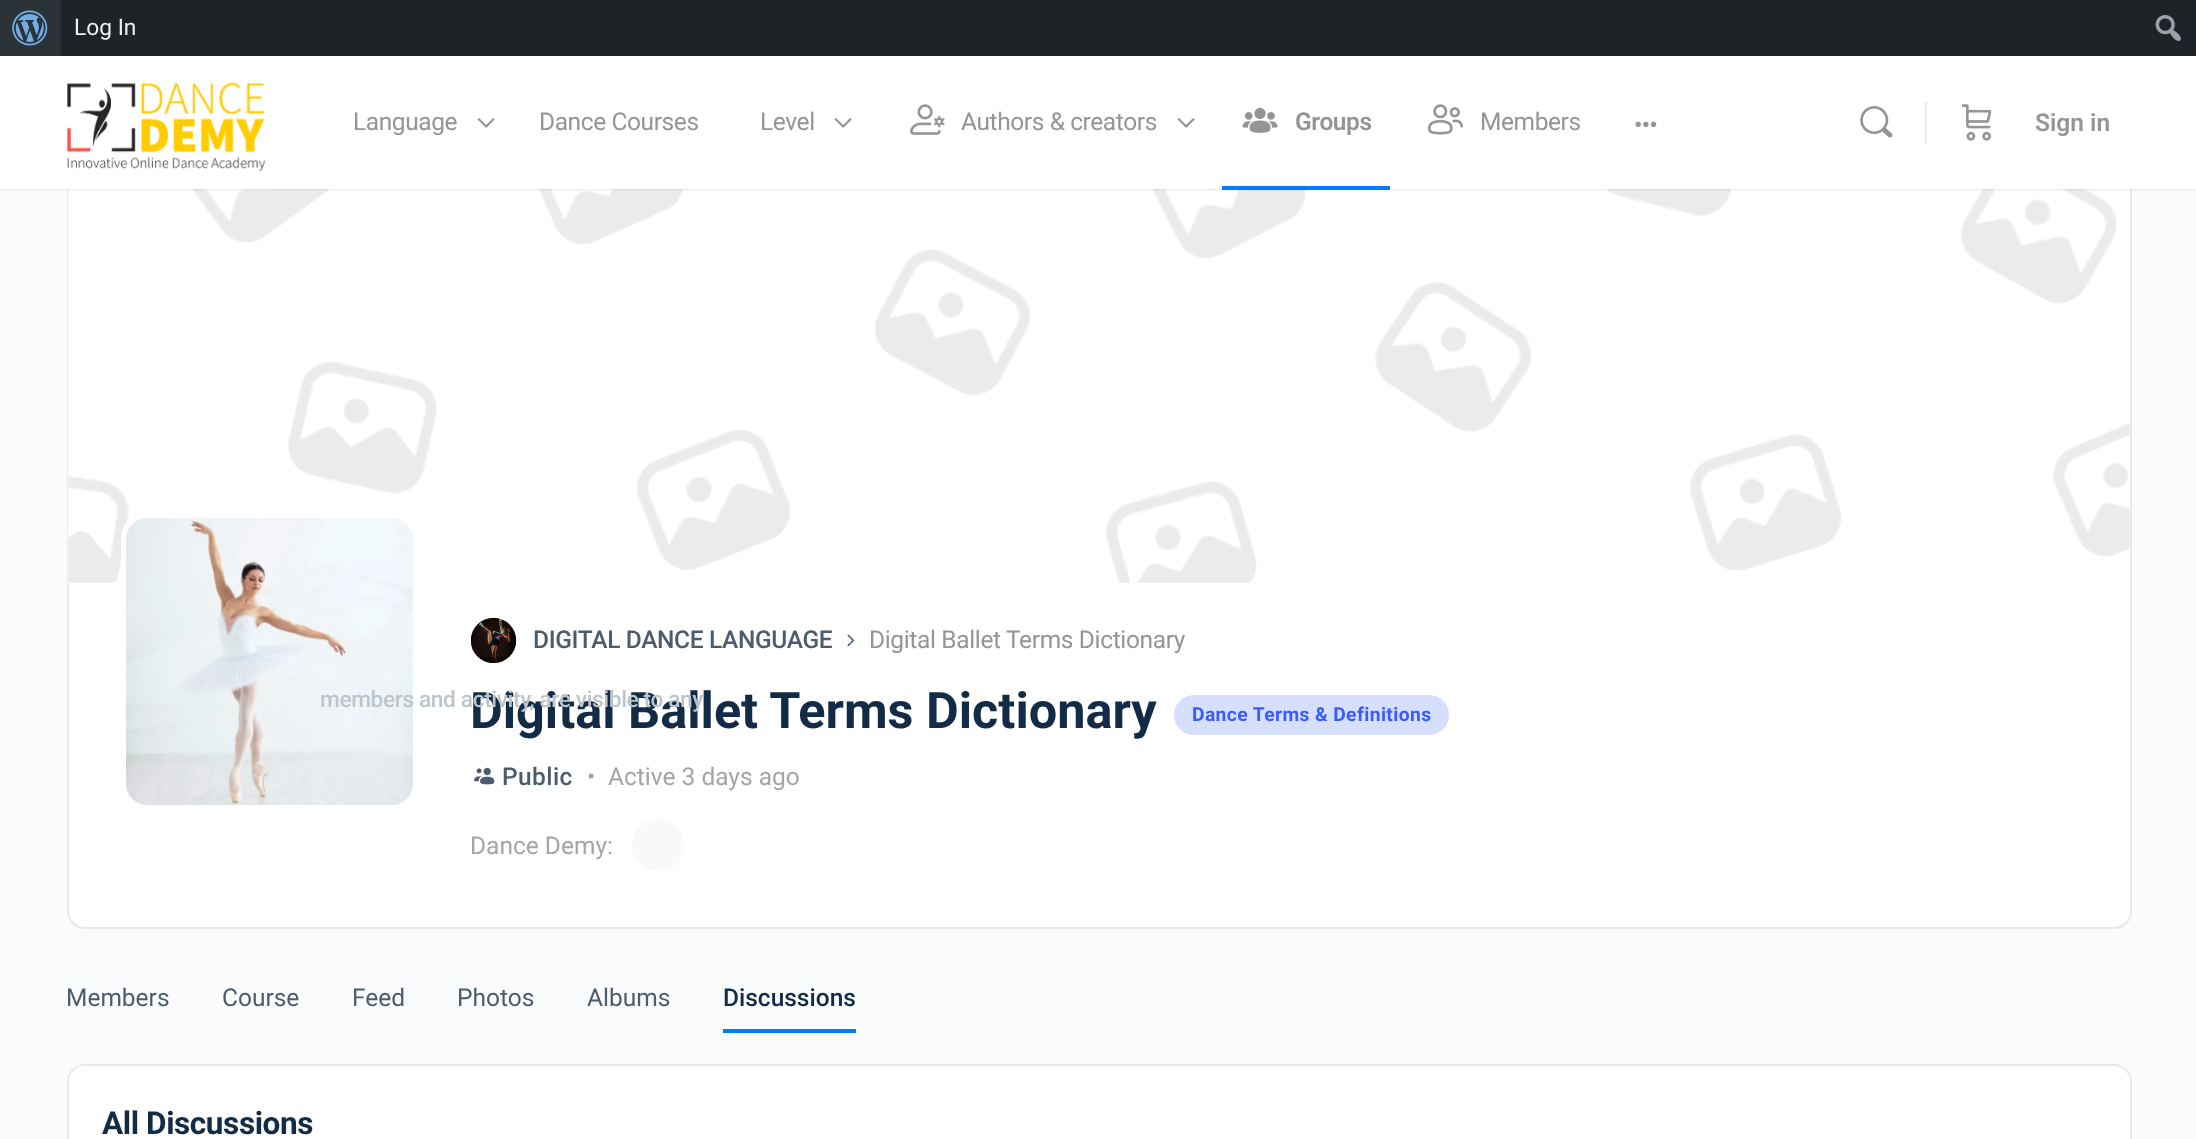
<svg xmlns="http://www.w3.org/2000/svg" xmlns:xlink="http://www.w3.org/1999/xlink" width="2196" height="1139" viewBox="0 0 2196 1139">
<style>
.cls-1{font:22.75px Roboto;fill:#f0f0f1}
.cls-2{font:24.5px Roboto;letter-spacing:-0.4px;fill:#939597}
.cls-3{font:600 24.5px Roboto;letter-spacing:-0.4px;fill:#939597}
.cls-4{font:600 24.5px Roboto;fill:#939597}
.cls-5{font:500 24.5px Roboto;letter-spacing:-0.35px;fill:#4d5c6d}
.cls-6{font:24.5px Roboto;letter-spacing:-0.35px;fill:#939597}
.cls-7{font:500 24.5px Roboto;letter-spacing:0.4px;fill:#4d5c6d}
.cls-8{font:24.5px Roboto;fill:#a3a5a9}
.cls-9{font:bold 50.4px Roboto;fill:#122b46}
.cls-10{font:500 22.75px Roboto;letter-spacing:-0.4px;fill:#bdc5cc}
.cls-11{font:bold 19.25px Roboto;letter-spacing:0.4px;fill:#385dff}
.cls-12{font:24.5px Roboto;fill:#4d5c6d}
.cls-13{font:500 24.5px Roboto;fill:#122b46}
.cls-14{font:bold 31.5px Roboto;letter-spacing:-0.4px;fill:#122b46}
</style>
<rect width="100%" height="100%" fill="#fafbfd"/>
<path fill="#ffffff" stroke="#e7e9ec" stroke-width="2" d="M68 188H2131V911C2131 920.5 2123.5 928 2114 928H85C75.5 928 68 920.5 68 911Z"/>
<rect fill="#ffffff" x="68" y="189" width="1" height="394"/>
<image xlink:href="image10.png" x="68" y="189" width="2062" height="394"/>
<rect fill="#41476c" fill-opacity="0.15" filter="blur(1px)" x="0" y="56" width="2196" height="133"/>
<rect fill="#1d2327" x="61" y="0" width="2135" height="56"/>
<rect fill="#2c3338" x="0" y="0" width="61" height="56"/>
<image xlink:href="image0.png" x="12" y="10" width="36" height="36"/>
<image xlink:href="image1.png" x="2155" y="15" width="26" height="26"/>
<rect fill="#8b8d9d" fill-opacity="0.05" x="0" y="189" width="2196" height="2"/>
<rect fill="#ffffff" x="0" y="56" width="2196" height="133"/>
<image xlink:href="image2.png" x="67" y="82" width="199" height="90"/>
<image xlink:href="image3.png" x="477" y="118" width="18" height="10"/>
<image xlink:href="image3.png" x="834" y="118" width="18" height="10"/>
<image xlink:href="image4.png" x="910" y="104" width="35" height="31"/>
<image xlink:href="image3.png" x="1177" y="118" width="18" height="10"/>
<rect fill="#007cff" x="1222" y="186" width="168" height="4"/>
<image xlink:href="image5.png" x="1242" y="107" width="36" height="26"/>
<image xlink:href="image6.png" x="1428" y="104" width="35" height="31"/>
<image xlink:href="image7.png" x="1635" y="121" width="22" height="7"/>
<image xlink:href="image8.png" x="1860" y="106" width="33" height="32"/>
<rect fill="#e9eaea" x="1925" y="102" width="2" height="42"/>
<image xlink:href="image9.png" x="1961" y="104" width="31" height="37"/>
<rect fill="#ffffff" stroke="#ffffff" stroke-width="5" x="123.5" y="515.5" width="292" height="292" rx="23.5"/>
<image xlink:href="image11.png" x="126" y="518" width="287" height="287"/>
<image xlink:href="image12.png" x="470" y="617" width="47" height="47"/>
<image xlink:href="image13.png" x="847" y="634" width="7" height="13"/>
<image xlink:href="image14.png" x="474" y="767" width="21" height="18"/>
<rect fill="#d7dfff" x="1174" y="695" width="275" height="40" rx="20"/>
<image xlink:href="image15.png" x="632" y="819" width="52" height="52"/>
<rect fill="#007cff" x="723" y="1029" width="133" height="4"/>
<path fill="#ffffff" stroke="#e7e9ec" stroke-width="2" d="M85 1065H2114C2123.5 1065 2131 1072.5 2131 1082V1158H68V1082C68 1072.5 75.5 1065 85 1065Z"/>
<text class="cls-1" x="74" y="35">Log In</text>
<text class="cls-2" x="353" y="130">Language</text>
<text class="cls-2" x="539" y="130">Dance Courses</text>
<text class="cls-2" x="760" y="130">Level</text>
<text class="cls-2" x="961" y="130">Authors &amp; creators</text>
<text class="cls-3" x="1295" y="130">Groups</text>
<text class="cls-2" x="1480" y="130">Members</text>
<text class="cls-4" x="2035" y="131">Sign in</text>
<text class="cls-5" x="533" y="648">DIGITAL DANCE LANGUAGE</text>
<text class="cls-6" x="869" y="648">Digital Ballet Terms Dictionary</text>
<text class="cls-7" x="502" y="785">Public</text>
<text class="cls-8" x="587" y="785">•</text>
<text class="cls-8" x="608" y="785">Active 3 days ago</text>
<text class="cls-9" x="470" y="728">Digital Ballet Terms Dictionary</text>
<text class="cls-10" x="320" y="707">members and activity, are visible to any</text>
<text class="cls-11" x="1192" y="721">Dance Terms &amp; Definitions</text>
<text class="cls-8" x="470" y="854">Dance Demy:</text>
<text class="cls-12" x="66" y="1006">Members</text>
<text class="cls-12" x="222" y="1006">Course</text>
<text class="cls-12" x="352" y="1006">Feed</text>
<text class="cls-12" x="457" y="1006">Photos</text>
<text class="cls-12" x="587" y="1006">Albums</text>
<text class="cls-13" x="723" y="1006">Discussions</text>
<text class="cls-14" x="102" y="1134">All Discussions</text>
</svg>
